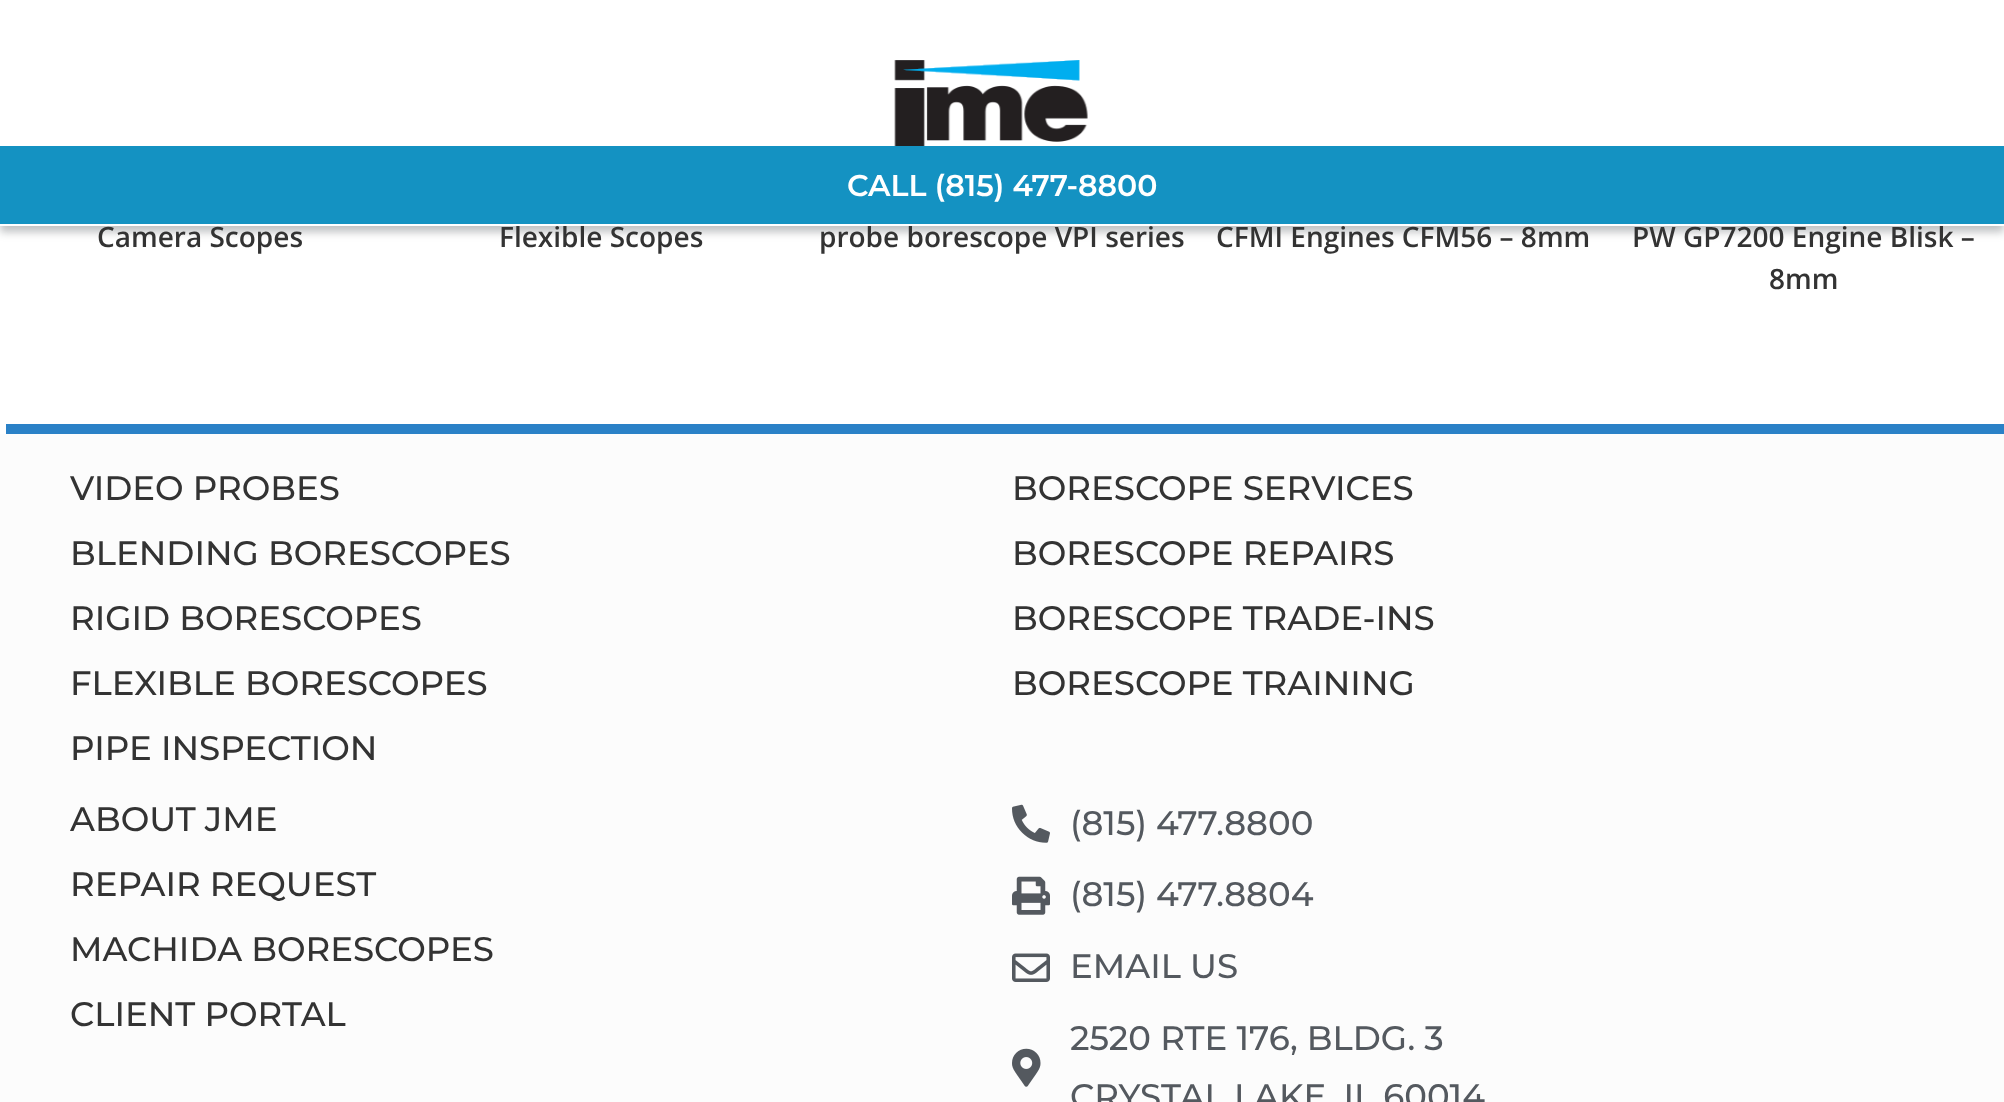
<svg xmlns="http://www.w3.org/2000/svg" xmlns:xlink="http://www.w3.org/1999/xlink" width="2004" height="1102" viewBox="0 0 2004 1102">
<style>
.cls-1{font:600 28px Open Sans;fill:#333333}
.cls-2{font:600 30px Montserrat;fill:#ffffff}
.cls-3{font:500 34px Montserrat;fill:#333333}
.cls-4{font:500 34px Montserrat;fill:#54595f}
</style>
<rect width="100%" height="100%" fill="#ffffff"/>
<rect fill="#54595f" fill-opacity="0.38" filter="blur(4px)" x="0" y="6" width="2004" height="226"/>
<path fill="#fcfcfc" d="M10 434H2004V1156H0V434Z"/>
<rect fill="#2a81c7" x="6" y="424" width="1998" height="10"/>
<image xlink:href="image1.png" x="1012" y="804" width="38" height="39"/>
<image xlink:href="image2.png" x="1012" y="876" width="38" height="39"/>
<image xlink:href="image3.png" x="1012" y="953" width="38" height="29"/>
<image xlink:href="image4.png" x="1012" y="1048" width="29" height="39"/>
<text class="cls-1" x="97" y="247">Camera Scopes</text>
<text class="cls-1" x="499" y="247">Flexible Scopes</text>
<text class="cls-1" x="819" y="247">probe borescope VPI series</text>
<text class="cls-1" x="1216" y="247">CFMI Engines CFM56 – 8mm</text>
<text class="cls-1" x="1632" y="247">PW GP7200 Engine Blisk –</text>
<rect fill="#ffffff" x="0" y="0" width="2004" height="226"/>
<rect fill="#1492c2" x="0" y="146" width="2004" height="78"/>
<text class="cls-2" x="847" y="196">CALL (815) 477-8800</text>
<image xlink:href="image0.png" x="894" y="60" width="194" height="86"/>
<text class="cls-1" x="1769" y="289">8mm</text>
<text class="cls-3"><tspan x="70" y="500">VIDEO PROBES</tspan><tspan x="70" y="565">BLENDING BORESCOPES</tspan><tspan x="70" y="630">RIGID BORESCOPES</tspan><tspan x="70" y="695">FLEXIBLE BORESCOPES</tspan><tspan x="70" y="760">PIPE INSPECTION</tspan></text>
<text class="cls-3"><tspan x="1012" y="500">BORESCOPE SERVICES</tspan><tspan x="1012" y="565">BORESCOPE REPAIRS</tspan><tspan x="1012" y="630">BORESCOPE TRADE-INS</tspan><tspan x="1012" y="695">BORESCOPE TRAINING</tspan></text>
<text class="cls-3"><tspan x="70" y="831">ABOUT JME</tspan><tspan x="70" y="896">REPAIR REQUEST</tspan><tspan x="70" y="961">MACHIDA BORESCOPES</tspan><tspan x="70" y="1026">CLIENT PORTAL</tspan></text>
<text class="cls-4" x="1070" y="835">(815) 477.8800</text>
<text class="cls-4" x="1070" y="906">(815) 477.8804</text>
<text class="cls-4" x="1070" y="978">EMAIL US</text>
<text class="cls-4"><tspan x="1070" y="1050">2520 RTE 176, BLDG. 3</tspan><tspan x="1070" y="1108">CRYSTAL LAKE, IL 60014</tspan></text>
</svg>
